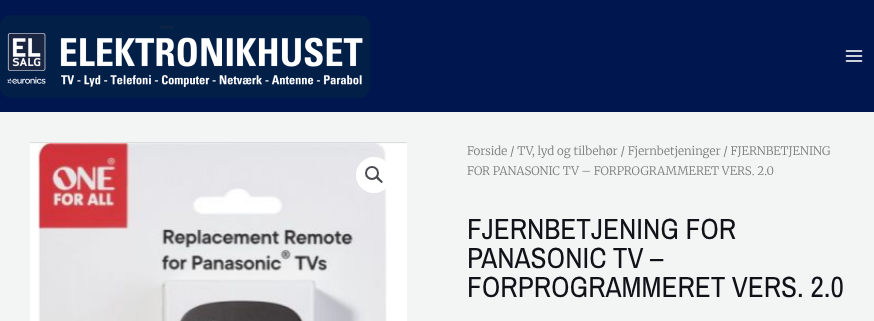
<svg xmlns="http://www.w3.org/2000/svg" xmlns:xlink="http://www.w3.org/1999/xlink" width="874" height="321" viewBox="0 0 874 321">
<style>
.cls-1{font:300 11.7px Merriweather;fill:#7a7a7a}
.cls-2{font:29.25px Archivo Narrow;fill:#101218}
</style>
<rect width="100%" height="100%" fill="#f3f5f5"/>
<rect fill="#00164f" x="0" y="0" width="874" height="112"/>
<image xlink:href="image0.png" x="0" y="15" width="370" height="83"/>
<image xlink:href="image1.png" x="845" y="50" width="18" height="12"/>
<image xlink:href="image2.png" x="30" y="142" width="377" height="179"/>
<circle fill="#ffffff" cx="374" cy="175" r="18"/>
<circle fill="none" stroke="#494b51" stroke-width="2" cx="372" cy="173" r="6"/>
<path fill="#494b51" d="M376.5 177C378 175.5 379.5 178.5 380 179C380.5 179.5 383.5 181.5 382.5 182.5C381 184 379.5 181 378.5 180.5C378 180 375.5 178 376.5 177Z"/>
<text class="cls-1"><tspan x="467" y="155">Forside / TV, lyd og tilbehør / Fjernbetjeninger / FJERNBETJENING</tspan><tspan x="467" y="175">FOR PANASONIC TV – FORPROGRAMMERET VERS. 2.0</tspan></text>
<text class="cls-2"><tspan x="467" y="239">FJERNBETJENING FOR</tspan><tspan x="467" y="268">PANASONIC TV –</tspan><tspan x="467" y="297">FORPROGRAMMERET VERS. 2.0</tspan></text>
</svg>
